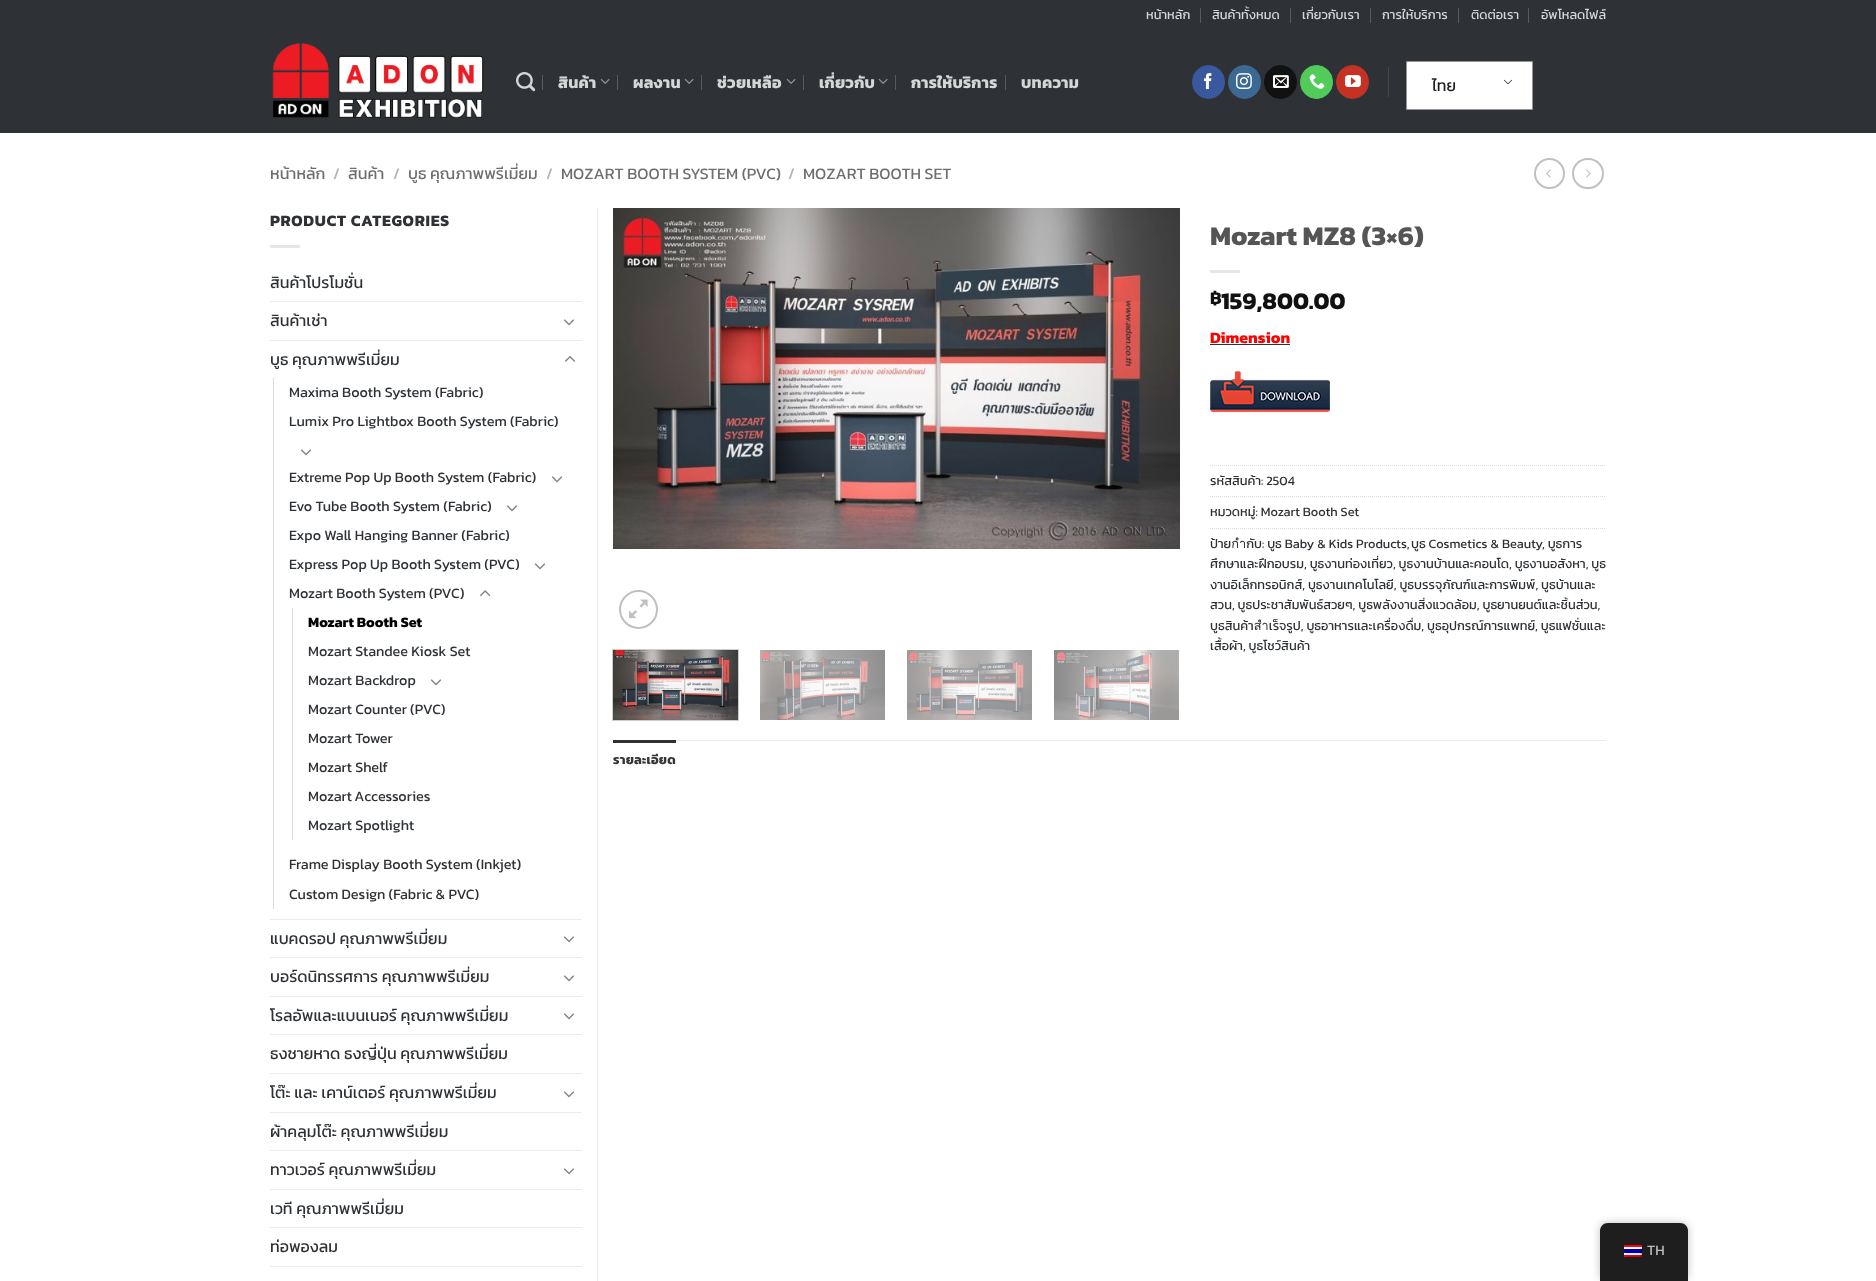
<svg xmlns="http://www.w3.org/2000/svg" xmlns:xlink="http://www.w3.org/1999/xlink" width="1876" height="1281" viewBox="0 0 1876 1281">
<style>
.cls-1{font:12.8px Kanit;fill:#d5d6d7}
.cls-2{font:bold 16px Kanit;letter-spacing:0.25px;fill:#d5d6d7}
.cls-3{font:16px Kanit;fill:#1e1e1e}
.cls-4{font:16px Kanit;fill:#6e6e6e}
.cls-5{font:16px Kanit;fill:#b2b2b2}
.cls-6{font:bold 16px Kanit;letter-spacing:0.75px;fill:#2e3236}
.cls-7{font:16px Kanit;fill:#2e3236}
.cls-8{font:14.4px Kanit;fill:#2e3236}
.cls-9{font:bold 14.4px Kanit;fill:#000000}
.cls-10{font:bold 27.25px Kanit;fill:#555555}
.cls-11{font:bold 18px Kanit;fill:#111111}
.cls-12{font:bold 24px Kanit;fill:#111111}
.cls-13{font:bold 16px Kanit;fill:#ff0000}
.cls-14{font:12.8px Kanit;fill:#2e3236}
.cls-15{font:bold 12.8px Kanit;letter-spacing:0.25px;fill:#363636}
.cls-16{font:14.4px Kanit;fill:#bdbdbd}
</style>
<rect width="100%" height="100%" fill="#ffffff"/>
<rect fill="#2e3236" x="0" y="0" width="1876" height="133"/>
<rect fill="#585b5e" x="1200" y="8" width="1" height="15"/>
<rect fill="#585b5e" x="1290" y="8" width="1" height="15"/>
<rect fill="#585b5e" x="1370" y="8" width="1" height="15"/>
<rect fill="#585b5e" x="1458" y="8" width="1" height="15"/>
<rect fill="#585b5e" x="1528" y="8" width="1" height="15"/>
<image xlink:href="image0.png" x="272" y="43" width="212" height="76"/>
<image xlink:href="image1.png" x="516" y="72" width="20" height="20"/>
<rect fill="#585b5e" x="542" y="75" width="1" height="15"/>
<image xlink:href="image2.png" x="600" y="78" width="10" height="6"/>
<rect fill="#585b5e" x="617" y="75" width="1" height="15"/>
<image xlink:href="image2.png" x="684" y="78" width="10" height="6"/>
<rect fill="#585b5e" x="701" y="75" width="1" height="15"/>
<image xlink:href="image2.png" x="786" y="78" width="10" height="6"/>
<rect fill="#585b5e" x="803" y="75" width="1" height="15"/>
<image xlink:href="image2.png" x="878" y="78" width="10" height="6"/>
<rect fill="#585b5e" x="895" y="75" width="1" height="15"/>
<rect fill="#585b5e" x="1005" y="75" width="1" height="15"/>
<rect fill="#3a589d" stroke="#3a589d" x="1192.5" y="65.5" width="32" height="33" rx="16"/>
<image xlink:href="image3.png" x="1203" y="73" width="9" height="16"/>
<rect fill="#3b6994" stroke="#3b6994" x="1228.5" y="65.5" width="32" height="33" rx="16"/>
<image xlink:href="image4.png" x="1236" y="73" width="16" height="16"/>
<rect fill="#111111" stroke="#111111" x="1264.5" y="65.5" width="32" height="33" rx="16"/>
<image xlink:href="image5.png" x="1273" y="75" width="16" height="13"/>
<rect fill="#51cb5a" stroke="#51cb5a" x="1300.5" y="65.5" width="32" height="33" rx="16"/>
<image xlink:href="image6.png" x="1309" y="74" width="16" height="15"/>
<rect fill="#c33223" stroke="#c33223" x="1336.5" y="65.5" width="32" height="33" rx="16"/>
<image xlink:href="image7.png" x="1345" y="75" width="16" height="12"/>
<rect fill="#43474a" x="1388" y="67" width="1" height="30"/>
<rect fill="#ffffff" x="1406" y="61" width="127" height="49" rx="2"/>
<image xlink:href="image8.png" x="1504" y="79" width="8" height="5"/>
<rect fill="none" stroke="#949494" x="1406.5" y="61.5" width="126" height="48" rx="1.5"/>
<circle fill="none" stroke="#c0c0c0" stroke-width="2" cx="1549.5" cy="173.5" r="14.5"/>
<image xlink:href="image9.png" x="1546" y="169" width="5" height="9"/>
<rect fill="none" stroke="#c0c0c0" stroke-width="2" x="1573" y="159" width="30" height="29" rx="14.5"/>
<image xlink:href="image10.png" x="1586" y="169" width="5" height="9"/>
<rect fill="#e6e6e6" x="270" y="245" width="30" height="3"/>
<rect fill="#ececec" x="270" y="301" width="312" height="1"/>
<image xlink:href="image11.png" x="563" y="319" width="12" height="7"/>
<rect fill="#ececec" x="270" y="340" width="312" height="1"/>
<image xlink:href="image12.png" x="565" y="355" width="11" height="7"/>
<rect fill="#dddddd" x="273" y="378" width="1" height="531"/>
<image xlink:href="image11.png" x="300" y="449" width="12" height="7"/>
<image xlink:href="image11.png" x="551" y="476" width="12" height="7"/>
<image xlink:href="image11.png" x="506" y="505" width="12" height="7"/>
<image xlink:href="image11.png" x="534" y="563" width="12" height="7"/>
<image xlink:href="image13.png" x="480" y="590" width="11" height="7"/>
<rect fill="#dddddd" x="292" y="608" width="1" height="232"/>
<image xlink:href="image11.png" x="430" y="679" width="12" height="7"/>
<rect fill="#ececec" x="270" y="919" width="312" height="1"/>
<image xlink:href="image11.png" x="563" y="936" width="12" height="7"/>
<rect fill="#ececec" x="270" y="957" width="312" height="1"/>
<image xlink:href="image11.png" x="563" y="975" width="12" height="7"/>
<rect fill="#ececec" x="270" y="996" width="312" height="1"/>
<image xlink:href="image11.png" x="563" y="1013" width="12" height="7"/>
<rect fill="#ececec" x="270" y="1034" width="312" height="1"/>
<rect fill="#ececec" x="270" y="1073" width="312" height="1"/>
<image xlink:href="image11.png" x="563" y="1091" width="12" height="7"/>
<rect fill="#ececec" x="270" y="1112" width="312" height="1"/>
<rect fill="#ececec" x="270" y="1150" width="312" height="1"/>
<image xlink:href="image11.png" x="563" y="1168" width="12" height="7"/>
<rect fill="#ececec" x="270" y="1189" width="312" height="1"/>
<rect fill="#ececec" x="270" y="1227" width="312" height="1"/>
<rect fill="#ececec" x="270" y="1266" width="312" height="1"/>
<rect fill="#ececec" x="597" y="208" width="1" height="1073"/>
<image xlink:href="image14.png" x="613" y="208" width="567" height="341"/>
<circle fill="none" stroke="#c0c0c0" stroke-width="2" cx="638.5" cy="609.5" r="18.5"/>
<image xlink:href="image15.png" x="629" y="599" width="19" height="20"/>
<rect fill="none" stroke="#cccccc" x="612.5" y="649.5" width="126" height="71"/>
<image xlink:href="image16.png" x="613" y="650" width="125" height="70"/>
<image xlink:href="image17.png" x="760" y="650" width="125" height="70"/>
<image xlink:href="image18.png" x="907" y="650" width="125" height="70"/>
<image xlink:href="image19.png" x="1054" y="650" width="125" height="70"/>
<rect fill="#e6e6e6" x="1210" y="270" width="30" height="3"/>
<rect fill="#2e3236" x="1210" y="344" width="80" height="1"/>
<image xlink:href="image20.png" x="1210" y="371" width="120" height="41"/>
<path fill="none" stroke="#dddddd" stroke-dasharray="1 1" d="M1210 465.5H1606"/>
<path fill="none" stroke="#dddddd" stroke-dasharray="1 1" d="M1210 496.5H1606"/>
<path fill="none" stroke="#dddddd" stroke-dasharray="1 1" d="M1210 528.5H1606"/>
<rect fill="#ececec" x="676" y="740" width="930" height="1"/>
<rect fill="#2e3236" x="613" y="740" width="63" height="3"/>
<rect fill="#000000" fill-opacity="0.25" filter="blur(4px)" x="1600" y="1223" width="88" height="58" rx="8"/>
<path fill="#1e1e1e" d="M1608 1223H1680C1684.5 1223 1688 1226.5 1688 1231V1281H1600V1231C1600 1226.5 1603.5 1223 1608 1223Z"/>
<image xlink:href="image21.png" x="1624" y="1245" width="18" height="12"/>
<text class="cls-1" x="1146" y="19">หน้าหลัก</text>
<text class="cls-1" x="1212" y="19">สินค้าทั้งหมด</text>
<text class="cls-1" x="1302" y="19">เกี่ยวกับเรา</text>
<text class="cls-1" x="1382" y="19">การให้บริการ</text>
<text class="cls-1" x="1471" y="19">ติดต่อเรา</text>
<text class="cls-1" x="1541" y="19">อัพโหลดไฟล์</text>
<text class="cls-2" x="558" y="88">สินค้า</text>
<text class="cls-2" x="633" y="88">ผลงาน</text>
<text class="cls-2" x="717" y="88">ช่วยเหลือ</text>
<text class="cls-2" x="819" y="88">เกี่ยวกับ</text>
<text class="cls-2" x="911" y="88">การให้บริการ</text>
<text class="cls-2" x="1021" y="88">บทความ</text>
<text class="cls-3" x="1432" y="91">ไทย</text>
<text class="cls-4" x="270" y="179">หน้าหลัก</text>
<text class="cls-5" x="333" y="179">/</text>
<text class="cls-4" x="348" y="179">สินค้า</text>
<text class="cls-5" x="393" y="179">/</text>
<text class="cls-4" x="408" y="179">บูธ คุณภาพพรีเมี่ยม</text>
<text class="cls-5" x="546" y="179">/</text>
<text class="cls-4" x="561" y="179">MOZART BOOTH SYSTEM (PVC)</text>
<text class="cls-5" x="788" y="179">/</text>
<text class="cls-4" x="803" y="179">MOZART BOOTH SET</text>
<text class="cls-6" x="270" y="226">PRODUCT CATEGORIES</text>
<text class="cls-7" x="270" y="288">สินค้าโปรโมชั่น</text>
<text class="cls-7" x="270" y="326">สินค้าเช่า</text>
<text class="cls-7" x="270" y="365">บูธ คุณภาพพรีเมี่ยม</text>
<text class="cls-8" x="289" y="397">Maxima Booth System (Fabric)</text>
<text class="cls-8" x="289" y="426">Lumix Pro Lightbox Booth System (Fabric)</text>
<text class="cls-8" x="289" y="482">Extreme Pop Up Booth System (Fabric)</text>
<text class="cls-8" x="289" y="511">Evo Tube Booth System (Fabric)</text>
<text class="cls-8" x="289" y="540">Expo Wall Hanging Banner (Fabric)</text>
<text class="cls-8" x="289" y="569">Express Pop Up Booth System (PVC)</text>
<text class="cls-8" x="289" y="598">Mozart Booth System (PVC)</text>
<text class="cls-9" x="308" y="627">Mozart Booth Set</text>
<text class="cls-8" x="308" y="656">Mozart Standee Kiosk Set</text>
<text class="cls-8" x="308" y="685">Mozart Backdrop</text>
<text class="cls-8" x="308" y="714">Mozart Counter (PVC)</text>
<text class="cls-8" x="308" y="743">Mozart Tower</text>
<text class="cls-8" x="308" y="772">Mozart Shelf</text>
<text class="cls-8" x="308" y="801" word-spacing="-1">Mozart Accessories</text>
<text class="cls-8" x="308" y="830">Mozart Spotlight</text>
<text class="cls-8" x="289" y="869">Frame Display Booth System (Inkjet)</text>
<text class="cls-8" x="289" y="899">Custom Design (Fabric &amp; PVC)</text>
<text class="cls-7" x="270" y="944">แบคดรอป คุณภาพพรีเมี่ยม</text>
<text class="cls-7" x="270" y="982">บอร์ดนิทรรศการ คุณภาพพรีเมี่ยม</text>
<text class="cls-7" x="270" y="1021">โรลอัพและแบนเนอร์ คุณภาพพรีเมี่ยม</text>
<text class="cls-7" x="270" y="1059">ธงชายหาด ธงญี่ปุ่น คุณภาพพรีเมี่ยม</text>
<text class="cls-7" x="270" y="1098">โต๊ะ และ เคาน์เตอร์ คุณภาพพรีเมี่ยม</text>
<text class="cls-7" x="270" y="1137">ผ้าคลุมโต๊ะ คุณภาพพรีเมี่ยม</text>
<text class="cls-7" x="270" y="1175">ทาวเวอร์ คุณภาพพรีเมี่ยม</text>
<text class="cls-7" x="270" y="1214">เวที คุณภาพพรีเมี่ยม</text>
<text class="cls-7" x="270" y="1252">ท่อพองลม</text>
<text class="cls-10" x="1210" y="245">Mozart MZ8 (3×6)</text>
<text class="cls-11" x="1210" y="304">฿</text>
<text class="cls-12" x="1221" y="309">159,800.00</text>
<text class="cls-13" x="1210" y="343">Dimension</text>
<text class="cls-14" x="1210" y="485">รหัสสินค้า: 2504</text>
<text class="cls-14" x="1210" y="516">หมวดหมู่: Mozart Booth Set</text>
<text class="cls-14" x="1210" y="548">ป้ายกำกับ: บูธ Baby &amp; Kids Products,</text>
<text class="cls-14" x="1411" y="548">บูธ Cosmetics &amp; Beauty</text>
<text class="cls-14" x="1542" y="548">, บูธการ</text>
<text class="cls-14"><tspan x="1210" y="568">ศึกษาและฝึกอบรม, บูธงานท่องเที่ยว, บูธงานบ้านและคอนโด, บูธงานอสังหา, บูธ</tspan><tspan x="1210" y="589">งานอิเล็กทรอนิกส์, บูธงานเทคโนโลยี, บูธบรรจุภัณฑ์และการพิมพ์, บูธบ้านและ</tspan><tspan x="1210" y="609">สวน, บูธประชาสัมพันธ์สวยๆ, บูธพลังงานสิ่งแวดล้อม, บูธยานยนต์และชิ้นส่วน,</tspan><tspan x="1210" y="630">บูธสินค้าสำเร็จรูป, บูธอาหารและเครื่องดื่ม, บูธอุปกรณ์การแพทย์, บูธแฟชั่นและ</tspan><tspan x="1210" y="650">เสื้อผ้า, บูธโชว์สินค้า</tspan></text>
<text class="cls-15" x="613" y="764">รายละเอียด</text>
<text class="cls-16" x="1647" y="1255">TH</text>
</svg>
